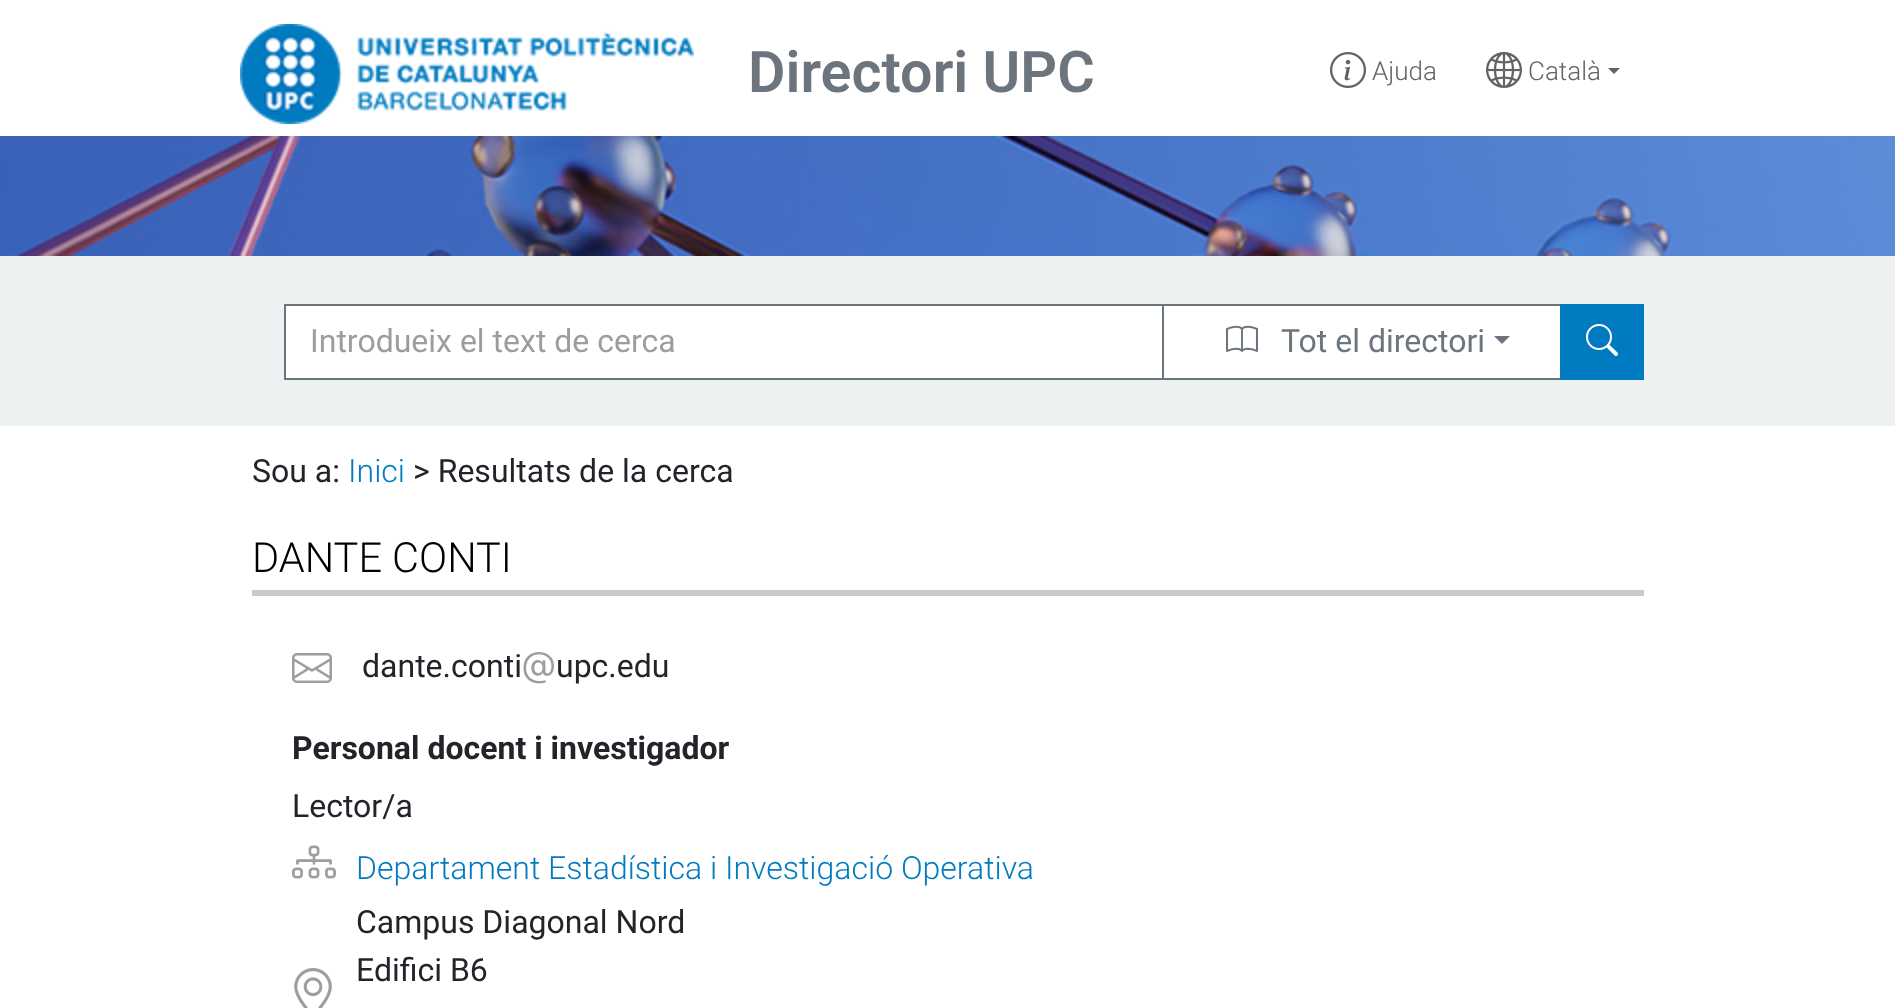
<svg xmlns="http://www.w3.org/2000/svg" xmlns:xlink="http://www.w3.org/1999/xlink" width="1895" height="1008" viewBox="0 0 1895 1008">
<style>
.cls-1{font:600 57.5px Roboto;fill:#6c757d}
.cls-2{font:300 26px Roboto;fill:#636363}
.cls-3{font:32px Roboto;fill:#9b9d9f}
.cls-4{font:32px Roboto;fill:#6c757d}
.cls-5{font:32px Roboto;fill:#212529}
.cls-6{font:300 32px Roboto;fill:#007bc1}
.cls-7{font:300 41.5px Roboto;fill:#000000}
.cls-8{font:bold 32px Roboto;fill:#212529}
</style>
<rect width="100%" height="100%" fill="#ffffff"/>
<image xlink:href="image0.png" x="240" y="24" width="454" height="100"/>
<image xlink:href="image1.png" x="1330" y="52" width="36" height="36"/>
<image xlink:href="image2.png" x="1486" y="52" width="36" height="36"/>
<path fill="#636363" d="M1608 68H1620L1614 74Z"/>
<image xlink:href="image3.png" x="0" y="136" width="1895" height="120"/>
<rect fill="#edf1f2" x="0" y="256" width="1895" height="170"/>
<rect fill="#ffffff" stroke="#6c757d" stroke-width="2" x="285" y="305" width="878" height="74"/>
<rect fill="#ffffff" stroke="#6c757d" stroke-width="2" x="1163" y="305" width="398" height="74"/>
<image xlink:href="image4.png" x="1226" y="325" width="32" height="27"/>
<path fill="#6c757d" d="M1494 336H1510L1502 344Z"/>
<rect fill="#007bc1" x="1560" y="304" width="84" height="76"/>
<image xlink:href="image5.png" x="1586" y="324" width="32" height="32"/>
<rect fill="#c8c9ca" x="252" y="590" width="1392" height="6"/>
<image xlink:href="image6.png" x="292" y="653" width="40" height="30"/>
<image xlink:href="image7.png" x="523" y="652" width="31" height="32"/>
<image xlink:href="image8.png" x="292" y="845" width="44" height="34"/>
<image xlink:href="image9.png" x="294" y="968" width="38" height="40"/>
<text class="cls-1" x="748" y="92">Directori UPC</text>
<text class="cls-2" x="1372" y="80">Ajuda</text>
<text class="cls-2" x="1528" y="80">Català</text>
<text class="cls-3" x="310" y="352">Introdueix el text de cerca</text>
<text class="cls-4" x="1281" y="352">Tot el directori</text>
<text class="cls-5" x="252" y="482">Sou a:</text>
<text class="cls-6" x="348" y="482">Inici</text>
<text class="cls-5" x="413" y="482">&gt; Resultats de la cerca</text>
<text class="cls-7" x="252" y="572">DANTE CONTI</text>
<text class="cls-5" x="362" y="677">dante.conti</text>
<text class="cls-5" x="556" y="677">upc.edu</text>
<text class="cls-8" x="292" y="759">Personal docent i investigador</text>
<text class="cls-5" x="292" y="817">Lector/a</text>
<text class="cls-6" x="356" y="879">Departament Estadística i Investigació Operativa</text>
<text class="cls-5"><tspan x="356" y="933">Campus Diagonal Nord</tspan><tspan x="356" y="981">Edifici B6</tspan></text>
</svg>
